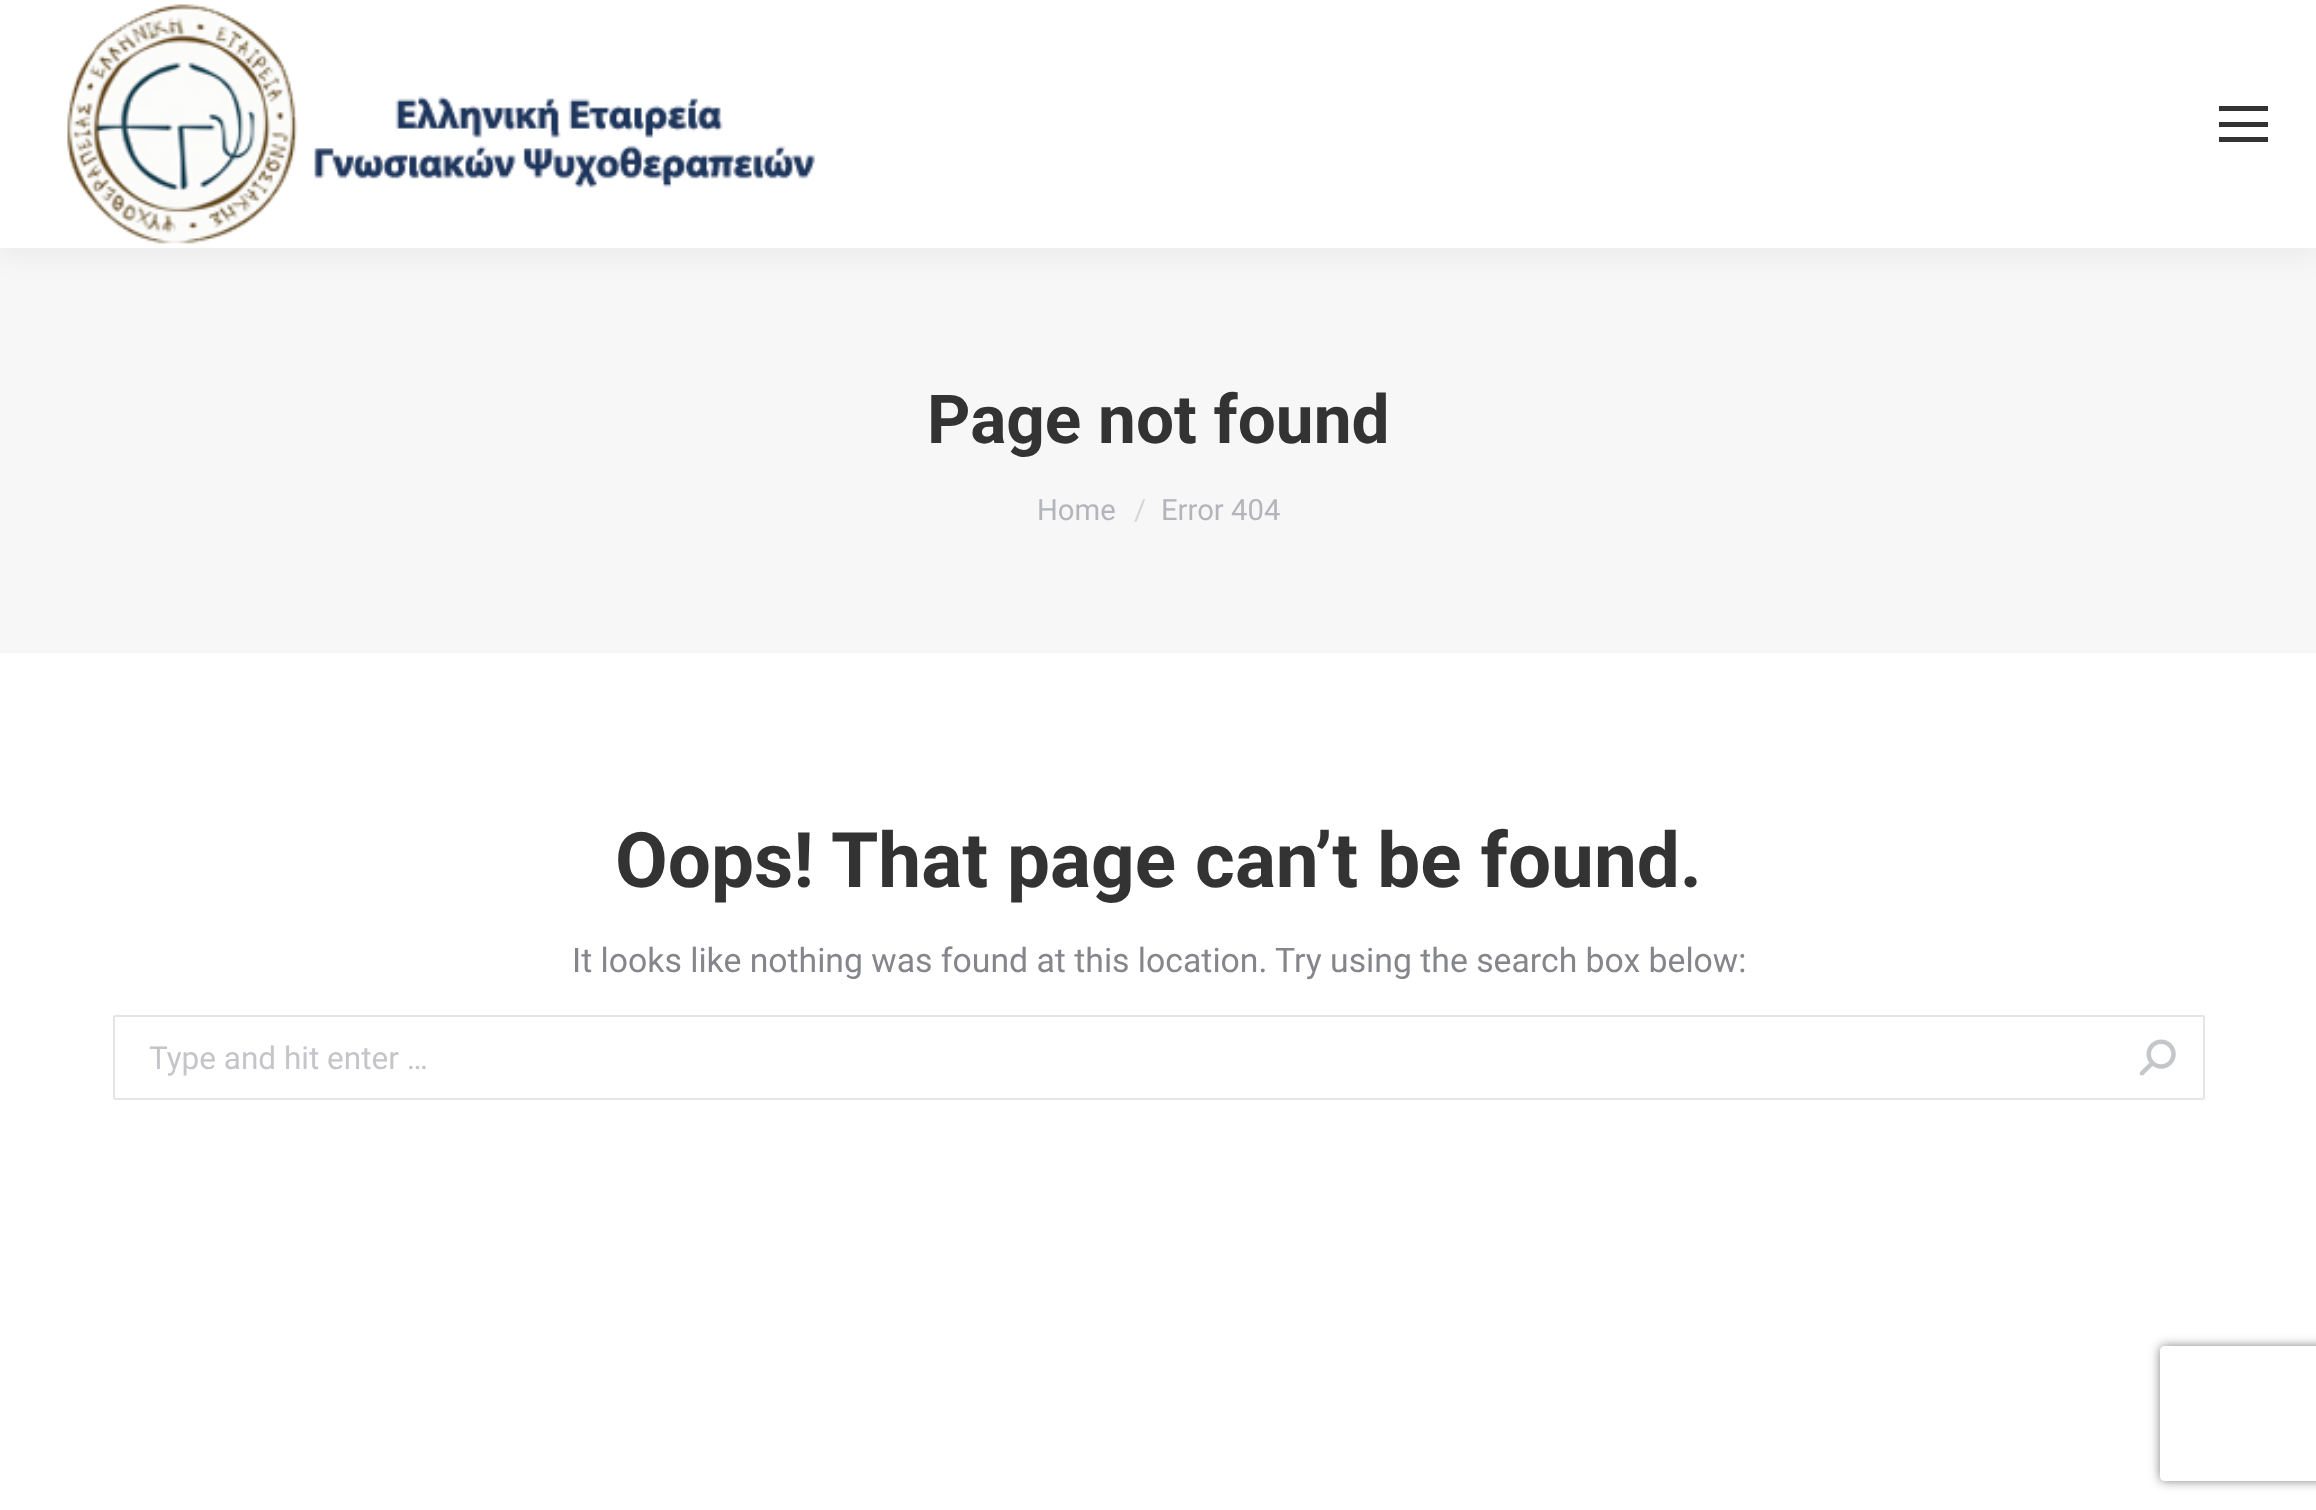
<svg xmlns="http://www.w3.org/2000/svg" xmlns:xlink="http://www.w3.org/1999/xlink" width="2316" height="1510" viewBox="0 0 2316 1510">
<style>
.cls-1{font:bold 67.5px Roboto;fill:#333333}
.cls-2{font:29.25px Roboto;fill:#b4b5bb}
.cls-3{font:29.25px Roboto;fill:#d6d6d9}
.cls-4{font:bold 76.5px Roboto;fill:#333333}
.cls-5{font:33.75px Roboto;fill:#85868c}
.cls-6{font:31.5px Roboto;fill:#c4c5c9}
</style>
<defs>
<clipPath id="clip1"><path d="M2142 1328H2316V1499H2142ZM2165 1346H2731C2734 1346 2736 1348 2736 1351V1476C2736 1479 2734 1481 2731 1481H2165C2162 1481 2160 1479 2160 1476V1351C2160 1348 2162 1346 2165 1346Z" clip-rule="evenodd"/></clipPath>
</defs>
<rect width="100%" height="100%" fill="#ffffff"/>
<rect fill="#f7f7f7" x="0" y="248" width="2316" height="405"/>
<rect fill="#000000" fill-opacity="0.07" filter="blur(17px)" x="-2" y="-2" width="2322" height="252"/>
<rect fill="#ffffff" x="0" y="0" width="2316" height="248"/>
<image xlink:href="image0.png" x="67" y="4" width="749" height="240"/>
<rect fill="#333333" x="2219" y="106" width="49" height="5"/>
<rect fill="#333333" x="2219" y="122" width="49" height="5"/>
<rect fill="#333333" x="2219" y="137" width="49" height="5"/>
<rect fill="none" stroke="#e5e5e5" stroke-width="2" x="114" y="1016" width="2090" height="83" rx="1"/>
<image xlink:href="image1.png" x="2139" y="1039" width="37" height="37"/>
<g clip-path="url(#clip1)">
<rect fill="#808080" filter="blur(5.5px)" x="2160" y="1346" width="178" height="135" rx="5"/>
</g>
<text class="cls-1" x="927" y="443">Page not found</text>
<text class="cls-2" x="1037" y="520">Home</text>
<text class="cls-3" x="1134" y="520">/</text>
<text class="cls-2" x="1161" y="520">Error 404</text>
<text class="cls-4" x="615" y="887">Oops! That page can’t be found.</text>
<text class="cls-5" x="572" y="972">It looks like nothing was found at this location. Try using the search box below:</text>
<text class="cls-6" x="149" y="1069">Type and hit enter …</text>
</svg>
